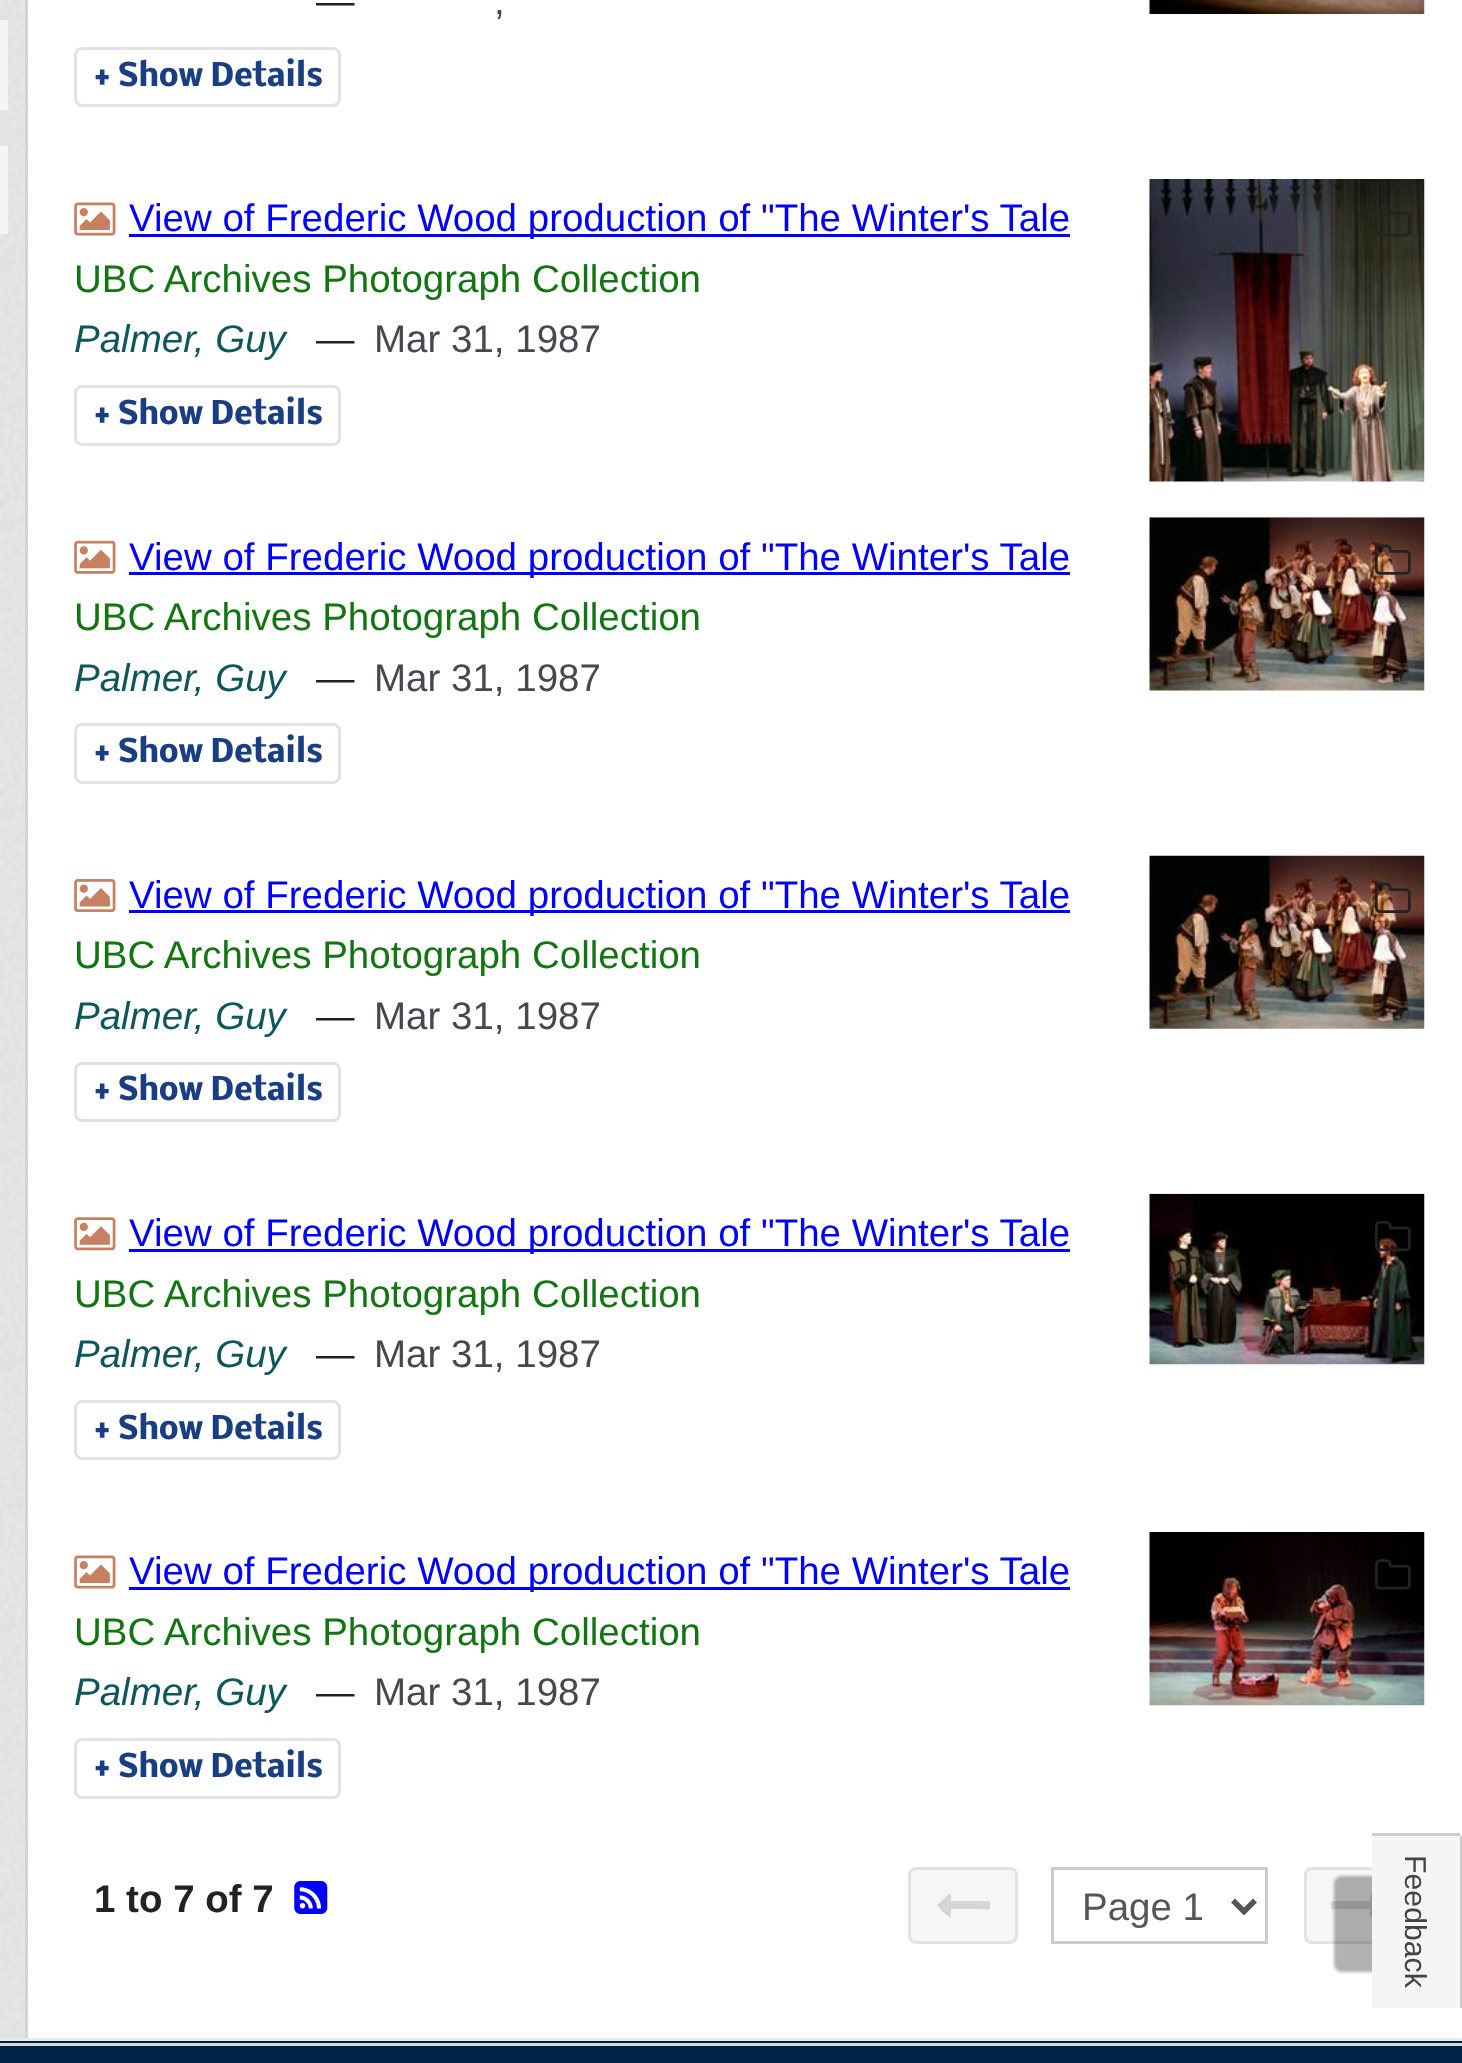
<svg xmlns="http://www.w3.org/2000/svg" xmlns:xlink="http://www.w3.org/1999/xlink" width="1462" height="2063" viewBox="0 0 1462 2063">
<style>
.cls-1{font:38.5px Liberation Sans;fill:#222222}
.cls-2{font:38.5px Liberation Sans;fill:#45484e}
.cls-3{font:bold 30.25px Nobile;fill:#1a3e82}
.cls-4{font:38.5px Liberation Sans;fill:#0000ff}
.cls-5{font:38.5px Liberation Sans;fill:#127512}
.cls-6{font:italic 38.5px Liberation Sans;fill:#0e5659}
.cls-7{font:bold 38.5px Liberation Sans;fill:#222222}
.cls-8{font:38.5px Liberation Sans;fill:#555555}
.cls-9{font:30.25px Liberation Sans;fill:#444444}
</style>
<defs>
<linearGradient id="g1" gradientUnits="userSpaceOnUse" x1="732" y1="2038" x2="732" y2="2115"><stop offset="0.15" stop-color="#002145"/><stop offset="0.85" stop-color="#002c5b"/></linearGradient>
</defs>
<rect width="100%" height="100%" fill="#ffffff"/>
<rect fill="#e1e2e4" x="0" y="2034" width="25" height="4"/>
<image xlink:href="image0.png" x="0" y="0" width="25" height="2034"/>
<rect fill="#d3d5d8" x="25" y="0" width="3" height="2038"/>
<rect fill="#f4f5f6" x="0" y="17" width="8" height="93"/>
<rect fill="#e1e2e4" x="0" y="17" width="8" height="3"/>
<rect fill="#f4f5f6" x="0" y="143" width="8" height="91"/>
<rect fill="#e1e2e4" x="0" y="143" width="8" height="3"/>
<rect fill="none" stroke="#e1e2e4" stroke-width="3" x="75.5" y="48.5" width="264" height="57" rx="6.5"/>
<image xlink:href="image1.png" x="1149" y="0" width="276" height="14"/>
<image xlink:href="image2.png" x="74" y="202" width="42" height="34"/>
<rect fill="#0000ff" x="129" y="234" width="941" height="3"/>
<rect fill="none" stroke="#e1e2e4" stroke-width="3" x="75.5" y="386.5" width="264" height="58" rx="6.5"/>
<image xlink:href="image3.png" x="1149" y="179" width="276" height="303"/>
<image xlink:href="image4.png" x="1375" y="206" width="36" height="31"/>
<image xlink:href="image5.png" x="74" y="540" width="42" height="34"/>
<rect fill="#0000ff" x="129" y="572" width="941" height="3"/>
<rect fill="none" stroke="#e1e2e4" stroke-width="3" x="75.5" y="724.5" width="264" height="58" rx="6.5"/>
<image xlink:href="image6.png" x="1149" y="517" width="276" height="174"/>
<image xlink:href="image7.png" x="1375" y="544" width="36" height="31"/>
<image xlink:href="image8.png" x="74" y="879" width="42" height="33"/>
<rect fill="#0000ff" x="129" y="910" width="941" height="3"/>
<rect fill="none" stroke="#e1e2e4" stroke-width="3" x="75.5" y="1063.5" width="264" height="57" rx="6.5"/>
<image xlink:href="image9.png" x="1149" y="855" width="276" height="174"/>
<image xlink:href="image10.png" x="1375" y="882" width="36" height="31"/>
<image xlink:href="image11.png" x="74" y="1217" width="42" height="34"/>
<rect fill="#0000ff" x="129" y="1249" width="941" height="3"/>
<rect fill="none" stroke="#e1e2e4" stroke-width="3" x="75.5" y="1401.5" width="264" height="57" rx="6.5"/>
<image xlink:href="image12.png" x="1149" y="1193" width="276" height="172"/>
<image xlink:href="image13.png" x="1375" y="1221" width="36" height="31"/>
<image xlink:href="image2.png" x="74" y="1555" width="42" height="34"/>
<rect fill="#0000ff" x="129" y="1587" width="941" height="3"/>
<rect fill="none" stroke="#e1e2e4" stroke-width="3" x="75.5" y="1739.5" width="264" height="58" rx="6.5"/>
<image xlink:href="image14.png" x="1149" y="1532" width="276" height="174"/>
<image xlink:href="image15.png" x="1375" y="1559" width="36" height="31"/>
<image xlink:href="image16.png" x="294" y="1881" width="34" height="33"/>
<rect fill="#f6f6f7" stroke="#e1e2e4" stroke-width="3" x="909.5" y="1868.5" width="107" height="74" rx="6.5"/>
<path fill="#d3d5d8" d="M990 1902C990 1913 991 1909 976 1909H951C951 1911 951 1916 950 1917C949 1918 937 1906 937 1905L949 1894C952 1893 951 1901 951 1901H989Z"/>
<rect fill="none" stroke="#cccccc" stroke-width="3" x="1052.5" y="1868.5" width="214" height="74"/>
<path fill="none" stroke="#555555" stroke-width="5.5" d="M1233 1900.5L1244 1911.5L1255 1900.5"/>
<rect fill="#f6f6f7" stroke="#e1e2e4" stroke-width="3" x="1305.5" y="1868.5" width="107" height="74" rx="6.5"/>
<path fill="#d3d5d8" d="M1384 1905L1372 1917C1369 1918 1370 1910 1370 1909H1338C1333 1909 1331 1911 1331 1907C1331 1906 1330 1901 1332 1901H1370C1370 1900 1370 1894 1371 1894C1372 1893 1384 1905 1384 1905Z"/>
<rect fill="url(#g1)" x="0" y="2041" width="1462" height="22"/>
<rect fill="#e9e9eb" x="0" y="2038" width="1462" height="3"/>
<rect fill="#d3d5d8" x="0" y="2043" width="1462" height="3"/>
<rect fill="#000000" fill-opacity="0.3" filter="blur(1.5px)" x="1334" y="1876" width="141" height="96" rx="8"/>
<path fill="#f5f5f5" d="M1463 1839V2008H1372V1833H1458C1461 1833 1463 1836 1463 1839Z"/>
<rect fill="#cccccc" x="1460" y="1836" width="2" height="172"/>
<rect fill="#cccccc" x="1372" y="1833" width="88" height="3"/>
<text class="cls-1" x="316" y="14">—</text>
<text class="cls-2" x="494" y="14">,</text>
<text class="cls-3" x="94" y="86">+ Show Details</text>
<text class="cls-4" x="129" y="231">View of Frederic Wood production of "The Winter's Tale</text>
<text class="cls-5" x="74" y="292">UBC Archives Photograph Collection</text>
<text class="cls-6" x="74" y="352">Palmer, Guy</text>
<text class="cls-1" x="316" y="352">—</text>
<text class="cls-2" x="374" y="352">Mar 31, 1987</text>
<text class="cls-3" x="94" y="424">+ Show Details</text>
<text class="cls-4" x="129" y="570">View of Frederic Wood production of "The Winter's Tale</text>
<text class="cls-5" x="74" y="630">UBC Archives Photograph Collection</text>
<text class="cls-6" x="74" y="691">Palmer, Guy</text>
<text class="cls-1" x="316" y="691">—</text>
<text class="cls-2" x="374" y="691">Mar 31, 1987</text>
<text class="cls-3" x="94" y="762">+ Show Details</text>
<text class="cls-4" x="129" y="908">View of Frederic Wood production of "The Winter's Tale</text>
<text class="cls-5" x="74" y="968">UBC Archives Photograph Collection</text>
<text class="cls-6" x="74" y="1029">Palmer, Guy</text>
<text class="cls-1" x="316" y="1029">—</text>
<text class="cls-2" x="374" y="1029">Mar 31, 1987</text>
<text class="cls-3" x="94" y="1100">+ Show Details</text>
<text class="cls-4" x="129" y="1246">View of Frederic Wood production of "The Winter's Tale</text>
<text class="cls-5" x="74" y="1307">UBC Archives Photograph Collection</text>
<text class="cls-6" x="74" y="1367">Palmer, Guy</text>
<text class="cls-1" x="316" y="1367">—</text>
<text class="cls-2" x="374" y="1367">Mar 31, 1987</text>
<text class="cls-3" x="94" y="1439">+ Show Details</text>
<text class="cls-4" x="129" y="1584">View of Frederic Wood production of "The Winter's Tale</text>
<text class="cls-5" x="74" y="1645">UBC Archives Photograph Collection</text>
<text class="cls-6" x="74" y="1705">Palmer, Guy</text>
<text class="cls-1" x="316" y="1705">—</text>
<text class="cls-2" x="374" y="1705">Mar 31, 1987</text>
<text class="cls-3" x="94" y="1777">+ Show Details</text>
<text class="cls-7" x="94" y="1912">1 to 7 of 7</text>
<text class="cls-8" x="1082" y="1920">Page 1</text>
<text class="cls-9" x="1405" y="1855" transform="rotate(90 1405 1855)">Feedback</text>
</svg>
